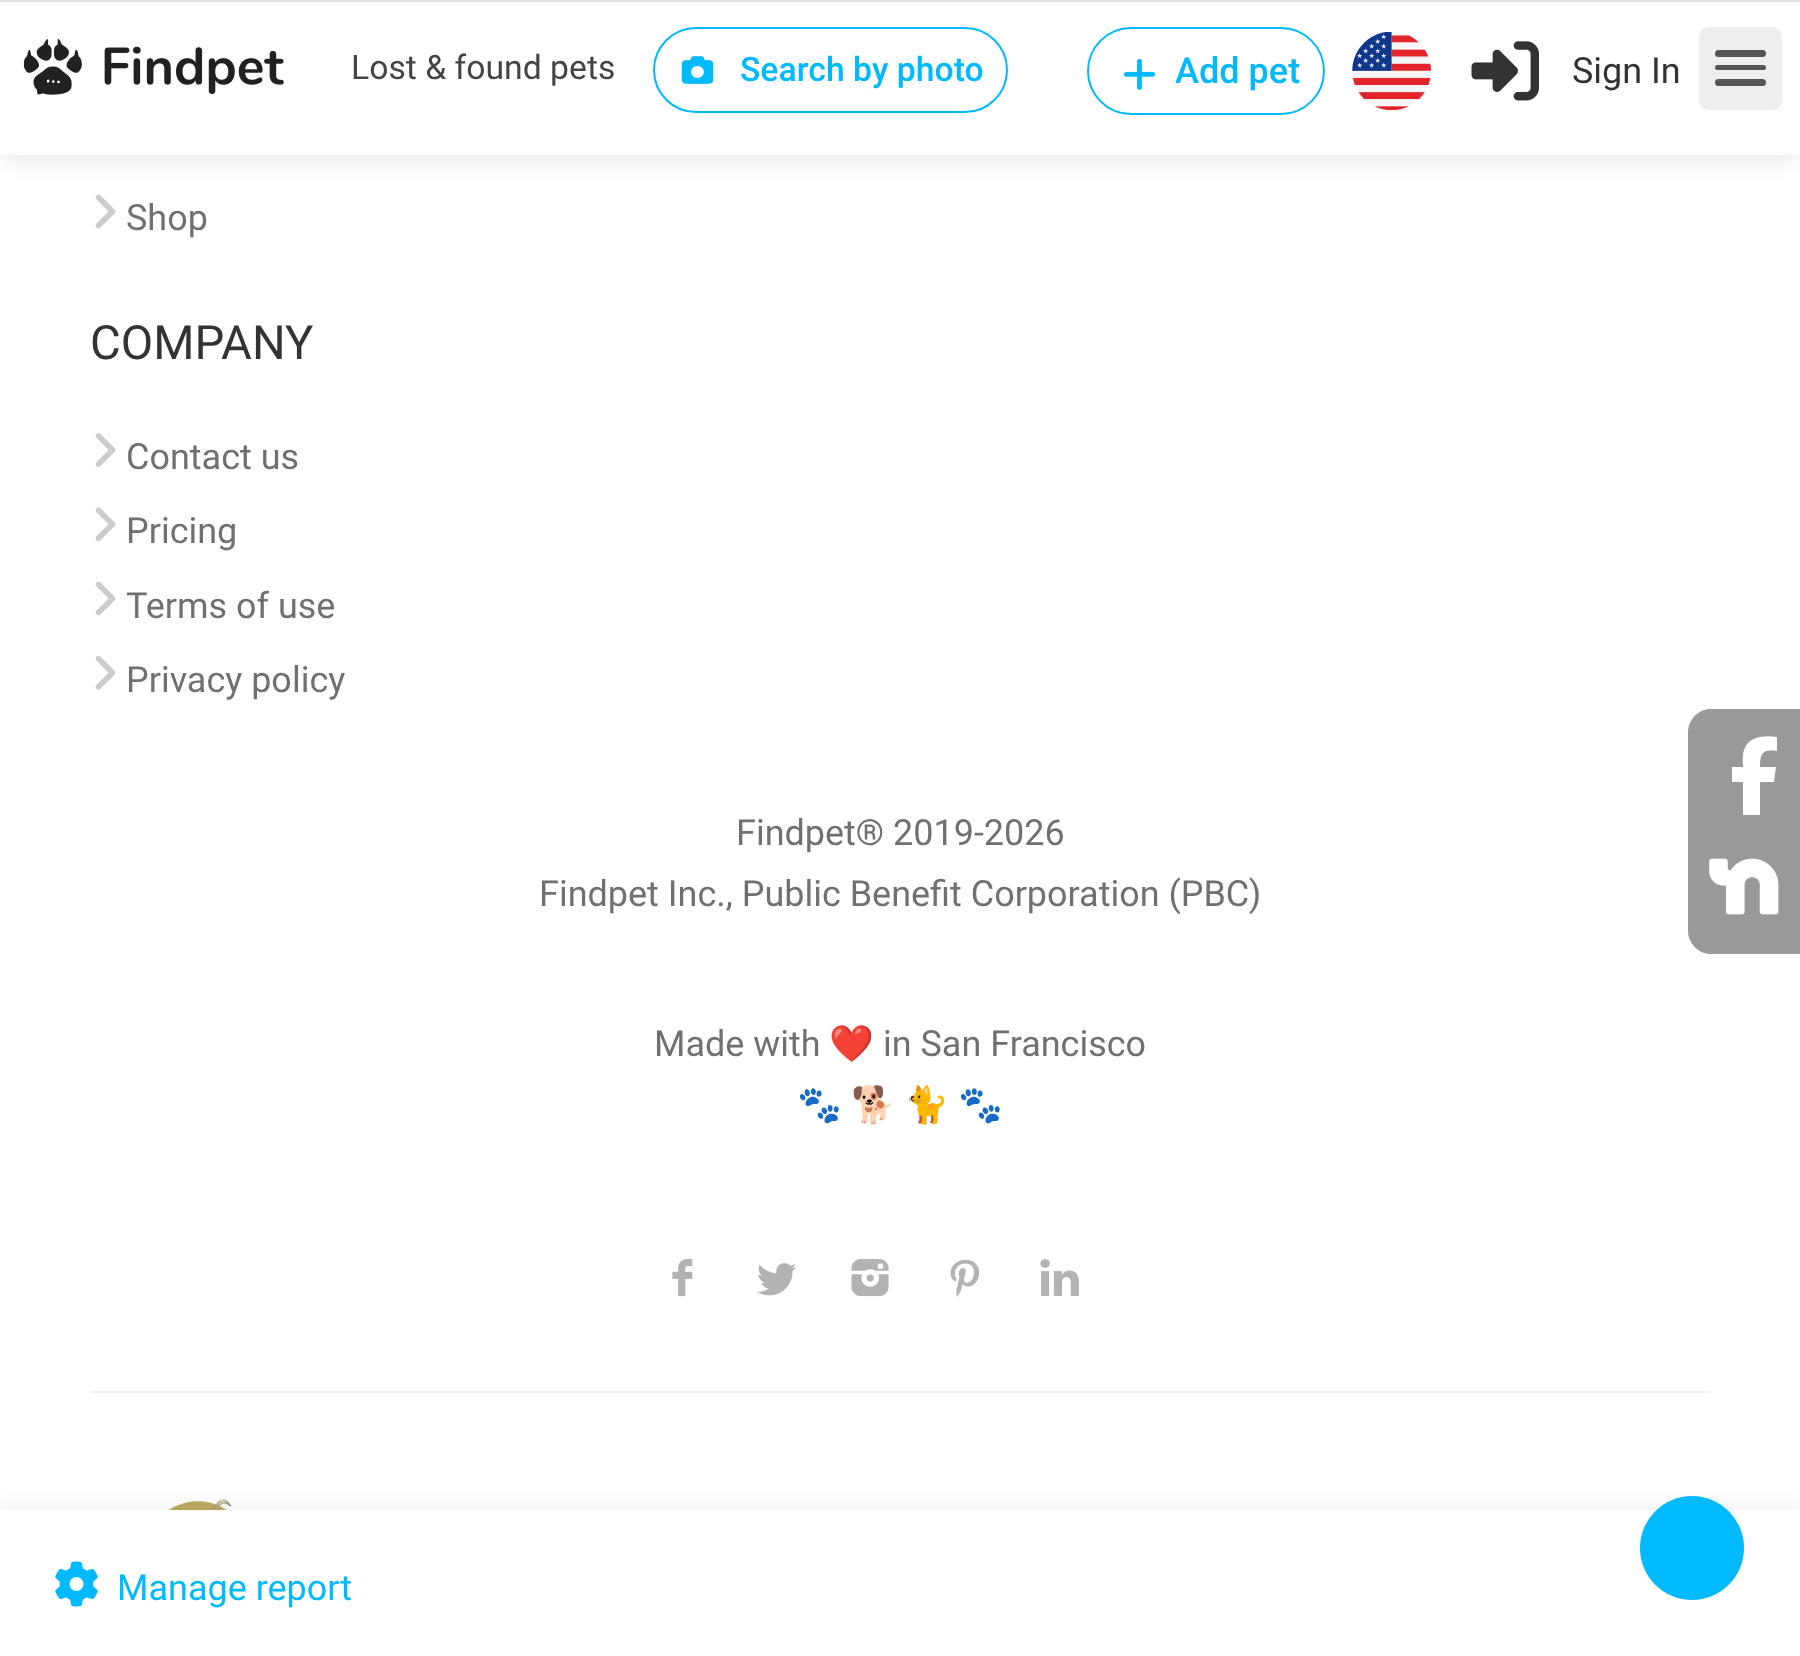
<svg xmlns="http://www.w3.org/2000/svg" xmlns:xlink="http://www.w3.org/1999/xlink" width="1800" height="1656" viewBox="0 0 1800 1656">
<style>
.cls-1{font:33.75px Roboto;fill:#444444}
.cls-2{font:500 33.75px Roboto;fill:#01b9ff}
.cls-3{font:500 36px Roboto;fill:#01b9ff}
.cls-4{font:36px Roboto;fill:#333333}
.cls-5{font:36px Roboto;fill:#707070}
.cls-6{font:47.25px Roboto;fill:#333333}
.cls-7{font:36px Noto Color Emoji;fill:#707070}
.cls-8{font:37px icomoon;fill:#b3b3b3}
.cls-9{font:36px Roboto;fill:#01b9ff}
</style>
<rect width="100%" height="100%" fill="#ffffff"/>
<image xlink:href="image5.png" x="95" y="194" width="21" height="35"/>
<rect fill="#000000" fill-opacity="0.12" filter="blur(13.5px)" x="0" y="0" width="1800" height="155"/>
<rect fill="#e0e0e0" x="0" y="0" width="1800" height="2"/>
<rect fill="#ffffff" x="0" y="2" width="1800" height="153"/>
<image xlink:href="image0.png" x="23" y="39" width="261" height="56"/>
<rect fill="none" stroke="#01b9ff" stroke-width="2" x="654" y="28" width="353" height="84" rx="42"/>
<image xlink:href="image1.png" x="681" y="56" width="33" height="28"/>
<rect fill="none" stroke="#01b9ff" stroke-width="2" x="1088" y="28" width="236" height="86" rx="43"/>
<image xlink:href="image2.png" x="1124" y="58" width="31" height="32"/>
<image xlink:href="image3.png" x="1352" y="32" width="79" height="78"/>
<image xlink:href="image4.png" x="1471" y="41" width="68" height="60"/>
<rect fill="#eeeeee" x="1699" y="27" width="83" height="83" rx="9"/>
<rect fill="#555555" x="1715" y="79" width="51" height="7" rx="3.5"/>
<rect fill="#555555" x="1715" y="50" width="51" height="7" rx="3.5"/>
<rect fill="#555555" x="1715" y="65" width="51" height="5" rx="2.5"/>
<image xlink:href="image6.png" x="95" y="433" width="21" height="34"/>
<image xlink:href="image7.png" x="95" y="507" width="21" height="34"/>
<image xlink:href="image5.png" x="95" y="581" width="21" height="35"/>
<image xlink:href="image8.png" x="95" y="655" width="21" height="35"/>
<image xlink:href="image9.png" x="672" y="1259" width="21" height="38"/>
<image xlink:href="image10.png" x="757" y="1263" width="40" height="33"/>
<image xlink:href="image11.png" x="851" y="1259" width="38" height="38"/>
<image xlink:href="image12.png" x="1040" y="1259" width="39" height="37"/>
<rect fill="#eeeeee" x="90" y="1391" width="1620" height="2"/>
<image xlink:href="image13.png" x="166" y="1499" width="66" height="11"/>
<rect fill="#000000" fill-opacity="0.08" filter="blur(13.5px)" x="0" y="1510" width="1800" height="146"/>
<rect fill="#ffffff" x="0" y="1510" width="1800" height="146"/>
<image xlink:href="image14.png" x="55" y="1561" width="43" height="46"/>
<circle fill="#01b9ff" cx="1692" cy="1548" r="52"/>
<path fill="#999999" d="M1711 709H1800V954H1711C1698.5 954 1688 943.5 1688 931V732C1688 719.5 1698.5 709 1711 709Z"/>
<path fill="#ffffff" d="M1743 782V815H1760V782H1774L1776 767H1760C1760 754 1762 749 1777 751V737C1765 735 1748 736 1744 750C1742 756 1743 762 1743 767H1732V782Z"/>
<image xlink:href="image15.png" x="1709" y="858" width="70" height="57"/>
<text class="cls-1" x="351" y="79">Lost &amp; found pets</text>
<text class="cls-2" x="740" y="81">Search by photo</text>
<text class="cls-3" x="1175" y="83">Add pet</text>
<text class="cls-4" x="1572" y="83">Sign In</text>
<text class="cls-5" x="126" y="230">Shop</text>
<text class="cls-6" x="90" y="359">COMPANY</text>
<text class="cls-5" x="126" y="469">Contact us</text>
<text class="cls-5" x="126" y="543">Pricing</text>
<text class="cls-5" x="126" y="618">Terms of use</text>
<text class="cls-5" x="126" y="692">Privacy policy</text>
<text class="cls-5" x="736" y="845">Findpet® 2019-2026</text>
<text class="cls-5" x="539" y="906">Findpet Inc., Public Benefit Corporation (PBC)</text>
<text class="cls-5" x="654" y="1056">Made with</text>
<text class="cls-7" x="829" y="1056">❤️</text>
<text class="cls-5" x="883" y="1056">in San Francisco</text>
<text class="cls-7" x="797" y="1117">🐾</text>
<text class="cls-7" x="851" y="1117">🐕</text>
<text class="cls-7" x="904" y="1117">🐈</text>
<text class="cls-7" x="958" y="1117">🐾</text>
<text class="cls-8" x="950" y="1291">1</text>
<text class="cls-9" x="117" y="1600">Manage report</text>
</svg>
